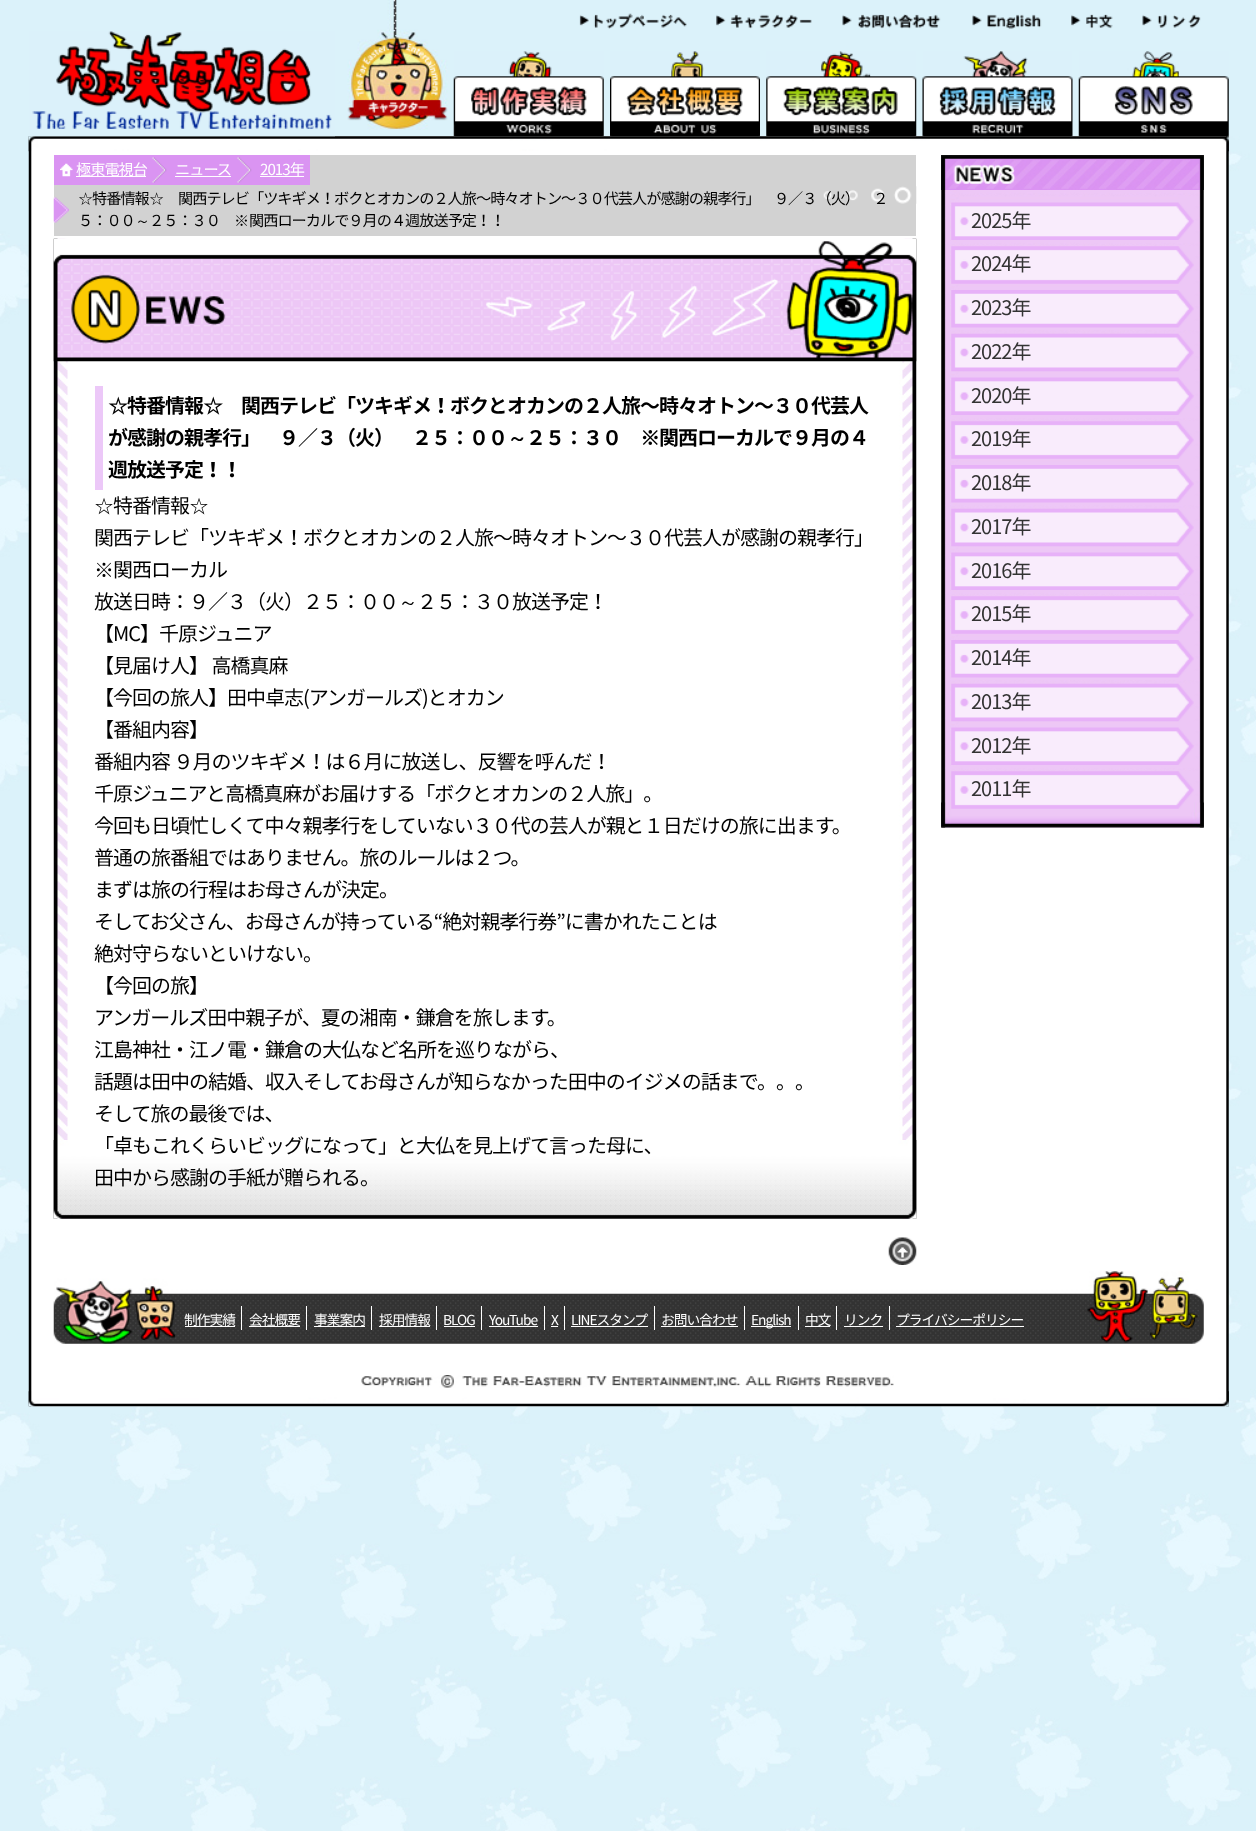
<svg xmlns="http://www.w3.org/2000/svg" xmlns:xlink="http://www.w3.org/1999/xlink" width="1256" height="1831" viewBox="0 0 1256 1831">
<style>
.cls-1{font:15.2px Noto Sans JP;letter-spacing:-1px;fill:#ffffff}
.cls-2{font:500 15.2px WenQuanYi Zen Hei;letter-spacing:-1px;fill:#000000}
.cls-3{font:15.2px Noto Sans JP;letter-spacing:-1px;fill:#000000}
.cls-4{font:bold 20px WenQuanYi Zen Hei;letter-spacing:-1px;fill:#000000}
.cls-5{font:bold 20px Noto Sans JP;letter-spacing:-1px;fill:#000000}
.cls-6{font:500 20px WenQuanYi Zen Hei;letter-spacing:-1px;fill:#000000}
.cls-7{font:20px Noto Sans JP;letter-spacing:-1px;fill:#000000}
.cls-8{font:20px Noto Sans JP;letter-spacing:-1px;fill:#333333}
.cls-9{font:13.75px Noto Sans JP;letter-spacing:-1px;fill:#ffffff}
</style>
<rect width="100%" height="100%" fill="#ffffff"/>
<image xlink:href="image0.png" x="0" y="136" width="1256" height="1695"/>
<rect fill="#dbf2fa" x="0" y="0" width="1256" height="136"/>
<image xlink:href="image14.png" x="28" y="136" width="1201" height="1271"/>
<image xlink:href="image15.png" x="28" y="136" width="1201" height="16"/>
<image xlink:href="image1.png" x="29" y="31" width="306" height="106"/>
<image xlink:href="image2.png" x="347" y="0" width="101" height="130"/>
<image xlink:href="image3.png" x="579" y="13" width="108" height="16"/>
<image xlink:href="image4.png" x="716" y="14" width="96" height="15"/>
<image xlink:href="image5.png" x="842" y="14" width="99" height="15"/>
<image xlink:href="image6.png" x="972" y="14" width="70" height="15"/>
<image xlink:href="image7.png" x="1071" y="14" width="42" height="15"/>
<image xlink:href="image8.png" x="1142" y="14" width="59" height="14"/>
<image xlink:href="image9.png" x="453" y="51" width="151" height="86"/>
<image xlink:href="image10.png" x="610" y="51" width="150" height="86"/>
<image xlink:href="image11.png" x="766" y="51" width="151" height="86"/>
<image xlink:href="image12.png" x="922" y="51" width="151" height="86"/>
<image xlink:href="image13.png" x="1078" y="51" width="151" height="86"/>
<image xlink:href="image16.png" x="28" y="1391" width="1201" height="16"/>
<rect fill="#d2d2d2" x="54" y="155" width="862" height="81"/>
<image xlink:href="image17.png" x="823" y="186" width="94" height="18"/>
<rect fill="#da94f2" x="54" y="155" width="256" height="30"/>
<image xlink:href="image18.png" x="60" y="163" width="13" height="14"/>
<rect fill="#ffffff" x="76" y="176" width="70" height="1"/>
<image xlink:href="image19.png" x="152" y="157" width="15" height="26"/>
<rect fill="#ffffff" x="175" y="176" width="56" height="1"/>
<image xlink:href="image19.png" x="237" y="157" width="15" height="26"/>
<rect fill="#ffffff" x="260" y="176" width="44" height="1"/>
<image xlink:href="image20.png" x="53" y="197" width="16" height="26"/>
<image xlink:href="image21.png" x="53" y="238" width="864" height="981"/>
<image xlink:href="image22.png" x="53" y="1140" width="864" height="79"/>
<image xlink:href="image23.png" x="53" y="238" width="864" height="124"/>
<rect fill="#ecc8f8" x="95" y="386" width="8" height="104"/>
<image xlink:href="image24.png" x="888" y="1237" width="29" height="28"/>
<image xlink:href="image25.png" x="941" y="155" width="263" height="673"/>
<image xlink:href="image26.png" x="941" y="802" width="263" height="26"/>
<image xlink:href="image27.png" x="941" y="155" width="263" height="35"/>
<image xlink:href="image28.png" x="951" y="202" width="243" height="38"/>
<image xlink:href="image29.png" x="951" y="246" width="243" height="38"/>
<image xlink:href="image30.png" x="951" y="290" width="243" height="38"/>
<image xlink:href="image31.png" x="951" y="333" width="243" height="39"/>
<image xlink:href="image28.png" x="951" y="377" width="243" height="38"/>
<image xlink:href="image29.png" x="951" y="421" width="243" height="38"/>
<image xlink:href="image32.png" x="951" y="465" width="243" height="38"/>
<image xlink:href="image31.png" x="951" y="508" width="243" height="39"/>
<image xlink:href="image28.png" x="951" y="552" width="243" height="38"/>
<image xlink:href="image29.png" x="951" y="596" width="243" height="38"/>
<image xlink:href="image32.png" x="951" y="640" width="243" height="38"/>
<image xlink:href="image31.png" x="951" y="683" width="243" height="39"/>
<image xlink:href="image28.png" x="951" y="727" width="243" height="38"/>
<image xlink:href="image33.png" x="951" y="771" width="243" height="38"/>
<image xlink:href="image34.png" x="53" y="1271" width="1151" height="73"/>
<rect fill="#ffffff" x="241" y="1306" width="1" height="24"/>
<rect fill="#ffffff" x="185" y="1326" width="50" height="1"/>
<rect fill="#ffffff" x="306" y="1306" width="1" height="24"/>
<rect fill="#ffffff" x="249" y="1326" width="51" height="1"/>
<rect fill="#ffffff" x="371" y="1306" width="1" height="24"/>
<rect fill="#ffffff" x="314" y="1326" width="51" height="1"/>
<rect fill="#ffffff" x="436" y="1306" width="1" height="24"/>
<rect fill="#ffffff" x="379" y="1326" width="51" height="1"/>
<rect fill="#ffffff" x="481" y="1306" width="1" height="24"/>
<rect fill="#ffffff" x="444" y="1326" width="31" height="1"/>
<rect fill="#ffffff" x="544" y="1306" width="1" height="24"/>
<rect fill="#ffffff" x="489" y="1326" width="49" height="1"/>
<rect fill="#ffffff" x="564" y="1306" width="1" height="24"/>
<rect fill="#ffffff" x="551" y="1326" width="7" height="1"/>
<rect fill="#ffffff" x="654" y="1306" width="1" height="24"/>
<rect fill="#ffffff" x="571" y="1326" width="77" height="1"/>
<rect fill="#ffffff" x="744" y="1306" width="1" height="24"/>
<rect fill="#ffffff" x="661" y="1326" width="77" height="1"/>
<rect fill="#ffffff" x="798" y="1306" width="1" height="24"/>
<rect fill="#ffffff" x="751" y="1326" width="40" height="1"/>
<rect fill="#ffffff" x="836" y="1306" width="1" height="24"/>
<rect fill="#ffffff" x="805" y="1326" width="25" height="1"/>
<rect fill="#ffffff" x="889" y="1306" width="1" height="24"/>
<rect fill="#ffffff" x="844" y="1326" width="39" height="1"/>
<rect fill="#ffffff" x="896" y="1326" width="128" height="1"/>
<image xlink:href="image35.png" x="361" y="1375" width="533" height="13"/>
<text class="cls-1" x="76" y="175">極東電視台</text>
<text class="cls-1" x="175" y="175">ニュース</text>
<text class="cls-1" x="260" y="175">2013年</text>
<text class="cls-2" x="78" y="204">☆</text>
<text class="cls-3" x="92" y="204">特番情報</text>
<text class="cls-2" x="149" y="204">☆</text>
<text class="cls-3" x="178" y="204">関西テレビ「ツキギメ！ボクとオカンの２人旅〜時々オトン〜３０代芸人が感謝の親孝行」　９／３（火）　２</text>
<text class="cls-3" x="78" y="226">５：００</text>
<text class="cls-2" x="135" y="226">～</text>
<text class="cls-3" x="149" y="226">２５：３０</text>
<text class="cls-2" x="234" y="226">※</text>
<text class="cls-3" x="249" y="226">関西ローカルで９月の４週放送予定！！</text>
<text class="cls-4" x="108" y="413">☆</text>
<text class="cls-5" x="127" y="413">特番情報</text>
<text class="cls-4" x="203" y="413">☆</text>
<text class="cls-5" x="241" y="413">関西テレビ「ツキギメ！ボクとオカンの２人旅〜時々オトン〜３０代芸人</text>
<text class="cls-5" x="108" y="445">が感謝の親孝行」　９／３（火）　２５：００</text>
<text class="cls-4" x="507" y="445">～</text>
<text class="cls-5" x="526" y="445">２５：３０</text>
<text class="cls-4" x="640" y="445">※</text>
<text class="cls-5" x="659" y="445">関西ローカルで９月の４</text>
<text class="cls-5" x="108" y="477">週放送予定！！</text>
<text class="cls-6" x="94" y="513">☆</text>
<text class="cls-7" x="113" y="513">特番情報</text>
<text class="cls-6" x="189" y="513">☆</text>
<text class="cls-7" x="94" y="545">関西テレビ「ツキギメ！ボクとオカンの２人旅〜時々オトン〜３０代芸人が感謝の親孝行」</text>
<text class="cls-6" x="94" y="577">※</text>
<text class="cls-7" x="113" y="577">関西ローカル</text>
<text class="cls-7" x="94" y="609">放送日時：９／３（火）２５：００</text>
<text class="cls-6" x="398" y="609">～</text>
<text class="cls-7" x="417" y="609">２５：３０放送予定！</text>
<text class="cls-7"><tspan x="94" y="641">【MC】千原ジュニア</tspan><tspan x="94" y="673">【見届け人】 高橋真麻</tspan><tspan x="94" y="705">【今回の旅人】田中卓志(アンガールズ)とオカン</tspan><tspan x="94" y="737">【番組内容】</tspan><tspan x="94" y="769">番組内容 ９月のツキギメ！は６月に放送し、反響を呼んだ！</tspan><tspan x="94" y="801">千原ジュニアと高橋真麻がお届けする「ボクとオカンの２人旅」。</tspan><tspan x="94" y="833">今回も日頃忙しくて中々親孝行をしていない３０代の芸人が親と１日だけの旅に出ます。</tspan><tspan x="94" y="865">普通の旅番組ではありません。旅のルールは２つ。</tspan><tspan x="94" y="897">まずは旅の行程はお母さんが決定。</tspan><tspan x="94" y="929">そしてお父さん、お母さんが持っている“絶対親孝行券”に書かれたことは</tspan><tspan x="94" y="961">絶対守らないといけない。</tspan><tspan x="94" y="993">【今回の旅】</tspan><tspan x="94" y="1025">アンガールズ田中親子が、夏の湘南・鎌倉を旅します。</tspan><tspan x="94" y="1057">江島神社・江ノ電・鎌倉の大仏など名所を巡りながら、</tspan><tspan x="94" y="1089">話題は田中の結婚、収入そしてお母さんが知らなかった田中のイジメの話まで。。。</tspan><tspan x="94" y="1121">そして旅の最後では、</tspan><tspan x="94" y="1153">「卓もこれくらいビッグになって」と大仏を見上げて言った母に、</tspan><tspan x="94" y="1185">田中から感謝の手紙が贈られる。</tspan></text>
<text class="cls-8" x="971" y="228">2025年</text>
<text class="cls-8" x="971" y="271">2024年</text>
<text class="cls-8" x="971" y="315">2023年</text>
<text class="cls-8" x="971" y="359">2022年</text>
<text class="cls-8" x="971" y="403">2020年</text>
<text class="cls-8" x="971" y="446">2019年</text>
<text class="cls-8" x="971" y="490">2018年</text>
<text class="cls-8" x="971" y="534">2017年</text>
<text class="cls-8" x="971" y="578">2016年</text>
<text class="cls-8" x="971" y="621">2015年</text>
<text class="cls-8" x="971" y="665">2014年</text>
<text class="cls-8" x="971" y="709">2013年</text>
<text class="cls-8" x="971" y="753">2012年</text>
<text class="cls-8" x="971" y="796">2011年</text>
<text class="cls-9" x="184" y="1325">制作実績</text>
<text class="cls-9" x="249" y="1325">会社概要</text>
<text class="cls-9" x="314" y="1325">事業案内</text>
<text class="cls-9" x="379" y="1325">採用情報</text>
<text class="cls-9" x="443" y="1325">BLOG</text>
<text class="cls-9" x="489" y="1325">YouTube</text>
<text class="cls-9" x="551" y="1325">X</text>
<text class="cls-9" x="571" y="1325">LINEスタンプ</text>
<text class="cls-9" x="661" y="1325">お問い合わせ</text>
<text class="cls-9" x="751" y="1325">English</text>
<text class="cls-9" x="805" y="1325">中文</text>
<text class="cls-9" x="844" y="1325">リンク</text>
<text class="cls-9" x="896" y="1325">プライバシーポリシー</text>
</svg>
